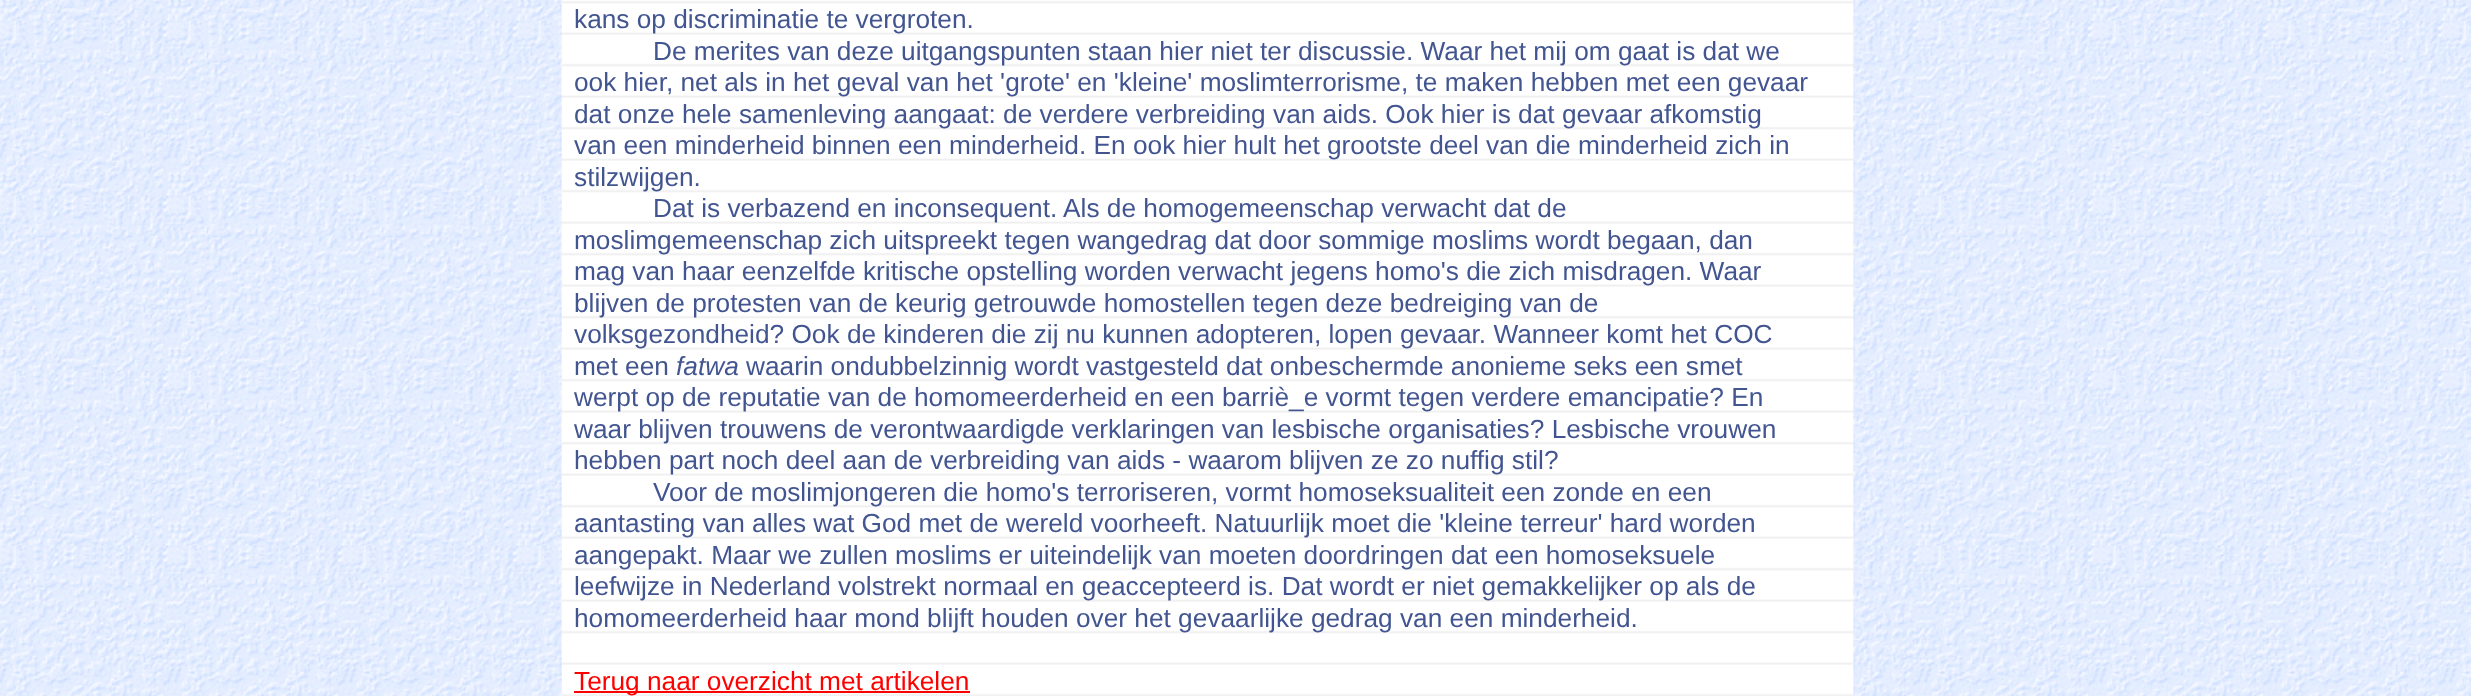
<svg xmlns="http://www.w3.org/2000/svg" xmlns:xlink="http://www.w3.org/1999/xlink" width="2471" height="696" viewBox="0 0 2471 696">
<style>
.cls-1{font:26.25px Liberation Sans;fill:#425590}
.cls-2{font:italic 26.25px Liberation Sans;fill:#425590}
.cls-3{font:26.25px Liberation Sans;fill:#ff0000}
</style>
<rect width="100%" height="100%" fill="#ffffff"/>
<image xlink:href="image0.png" x="0" y="0" width="2471" height="696"/>
<image xlink:href="image1.png" x="561" y="0" width="1293" height="696"/>
<rect fill="#ff0000" x="574" y="691" width="396" height="2"/>
<text class="cls-1" x="574" y="28">kans op discriminatie te vergroten.</text>
<text class="cls-1" x="653" y="60">De merites van deze uitgangspunten staan hier niet ter discussie. Waar het mij om gaat is dat we</text>
<text class="cls-1"><tspan x="574" y="91">ook hier, net als in het geval van het 'grote' en 'kleine' moslimterrorisme, te maken hebben met een gevaar</tspan><tspan x="574" y="123">dat onze hele samenleving aangaat: de verdere verbreiding van aids. Ook hier is dat gevaar afkomstig</tspan><tspan x="574" y="154">van een minderheid binnen een minderheid. En ook hier hult het grootste deel van die minderheid zich in</tspan><tspan x="574" y="186">stilzwijgen.</tspan></text>
<text class="cls-1" x="653" y="217">Dat is verbazend en inconsequent. Als de homogemeenschap verwacht dat de</text>
<text class="cls-1"><tspan x="574" y="249">moslimgemeenschap zich uitspreekt tegen wangedrag dat door sommige moslims wordt begaan, dan</tspan><tspan x="574" y="280">mag van haar eenzelfde kritische opstelling worden verwacht jegens homo's die zich misdragen. Waar</tspan><tspan x="574" y="312">blijven de protesten van de keurig getrouwde homostellen tegen deze bedreiging van de</tspan><tspan x="574" y="343">volksgezondheid? Ook de kinderen die zij nu kunnen adopteren, lopen gevaar. Wanneer komt het COC</tspan><tspan x="574" y="375">met een</tspan></text>
<text class="cls-2" x="676" y="375">fatwa</text>
<text class="cls-1" x="746" y="375">waarin ondubbelzinnig wordt vastgesteld dat onbeschermde anonieme seks een smet</text>
<text class="cls-1"><tspan x="574" y="406">werpt op de reputatie van de homomeerderheid en een barriè_e vormt tegen verdere emancipatie? En</tspan><tspan x="574" y="438">waar blijven trouwens de verontwaardigde verklaringen van lesbische organisaties? Lesbische vrouwen</tspan><tspan x="574" y="469">hebben part noch deel aan de verbreiding van aids - waarom blijven ze zo nuffig stil?</tspan></text>
<text class="cls-1" x="653" y="501">Voor de moslimjongeren die homo's terroriseren, vormt homoseksualiteit een zonde en een</text>
<text class="cls-1"><tspan x="574" y="532">aantasting van alles wat God met de wereld voorheeft. Natuurlijk moet die 'kleine terreur' hard worden</tspan><tspan x="574" y="564">aangepakt. Maar we zullen moslims er uiteindelijk van moeten doordringen dat een homoseksuele</tspan><tspan x="574" y="595">leefwijze in Nederland volstrekt normaal en geaccepteerd is. Dat wordt er niet gemakkelijker op als de</tspan><tspan x="574" y="627">homomeerderheid haar mond blijft houden over het gevaarlijke gedrag van een minderheid.</tspan></text>
<text class="cls-3" x="574" y="690">Terug naar overzicht met artikelen</text>
</svg>
